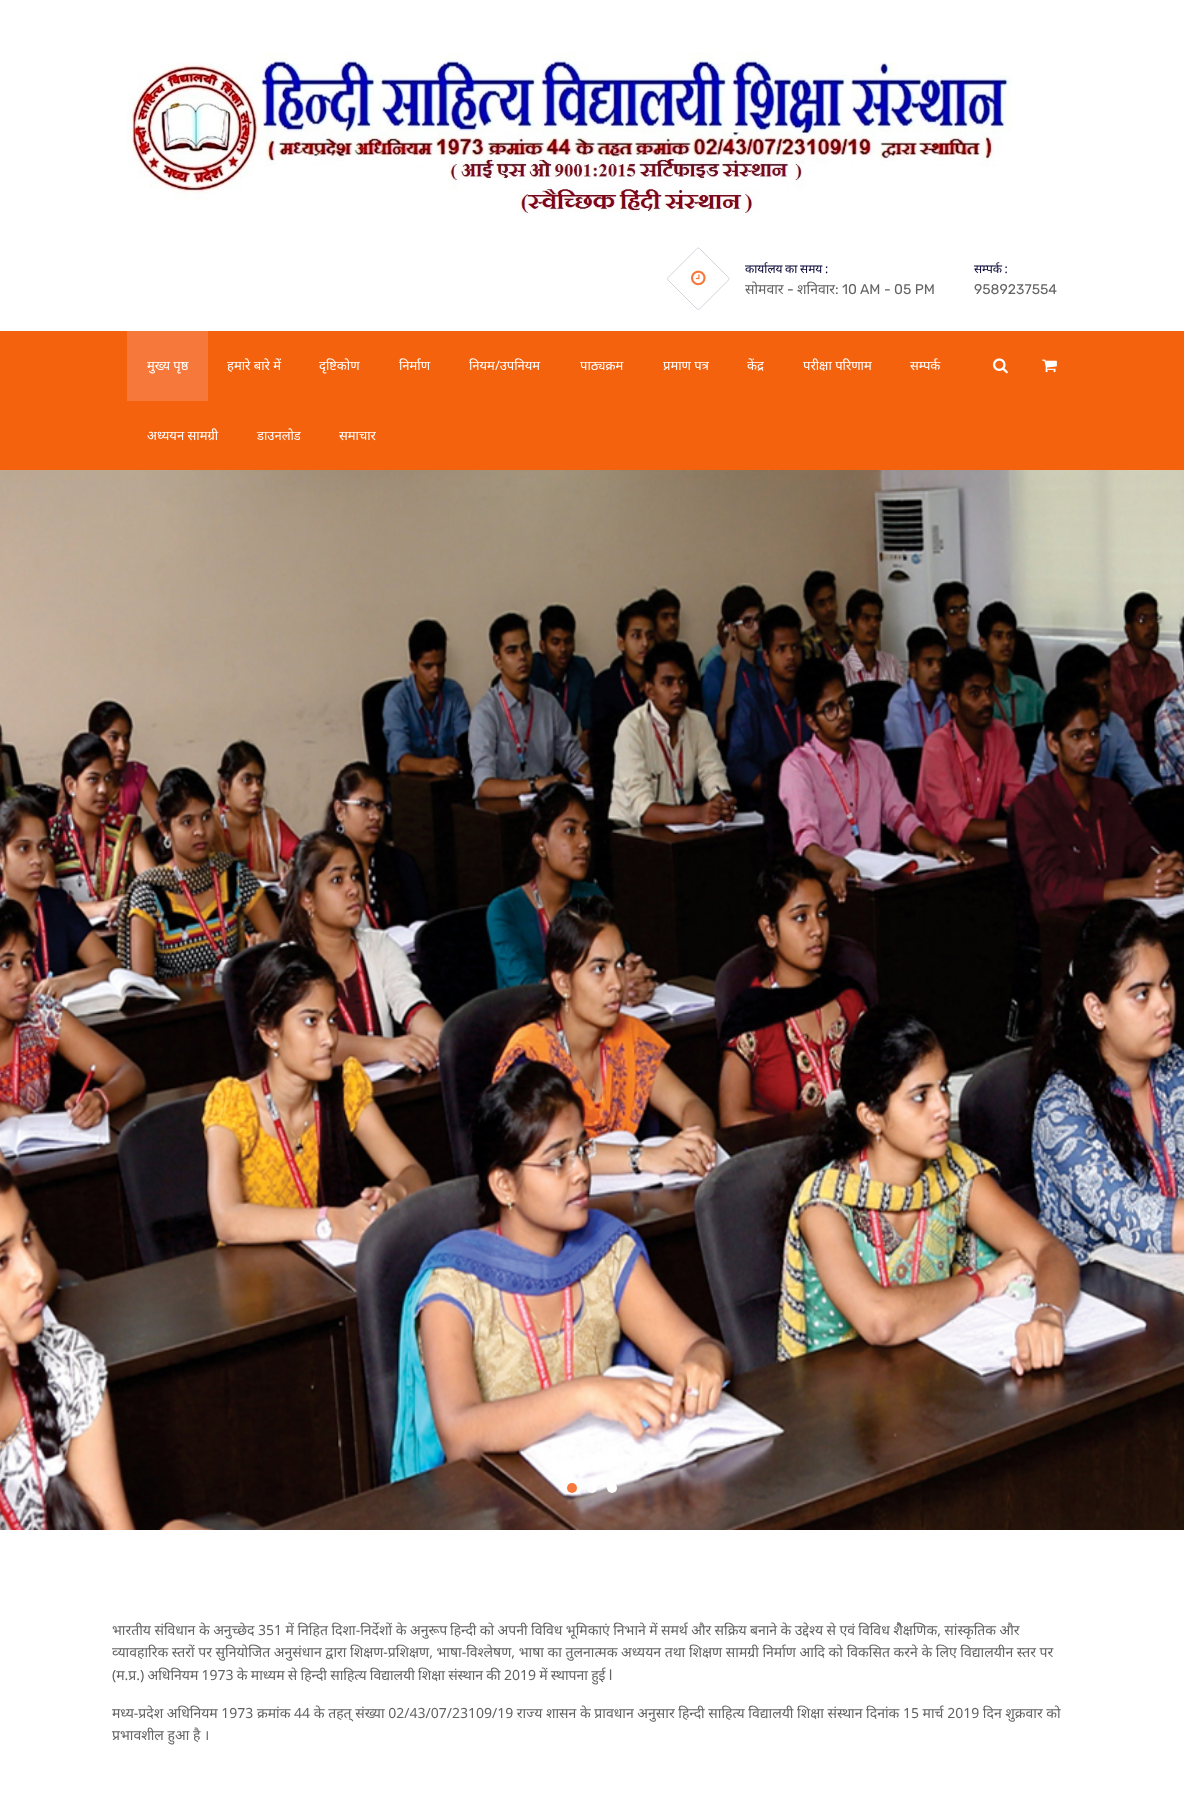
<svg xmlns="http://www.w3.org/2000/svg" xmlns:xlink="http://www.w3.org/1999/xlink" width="1184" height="1794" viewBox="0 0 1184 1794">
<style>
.cls-1{font:12px Noto Sans;fill:#020031}
.cls-2{font:14px Noto Sans;fill:#636363}
.cls-3{font:14px Rubik;fill:#636363}
.cls-4{font:13px Noto Sans;fill:#ffffff}
</style>
<rect width="100%" height="100%" fill="#ffffff"/>
<image xlink:href="image0.png" x="127" y="52" width="885" height="164"/>
<image xlink:href="image1.png" x="691" y="270" width="15" height="16"/>
<path fill="none" stroke="#d2d2db" d="M699.5 248.5L728.5 277.5C729 278.5 729 279.5 728.5 280L699.5 309C698.5 309.5 697.5 309.5 697 309L668 280C667.5 279.5 667.5 278.5 668 277.5L697 248.5C697.5 248 698.5 248 699.5 248.5Z"/>
<rect fill="#f5620e" x="0" y="331" width="1184" height="139"/>
<rect fill="#f6783a" x="127" y="331" width="81" height="70"/>
<image xlink:href="image2.png" x="993" y="358" width="15" height="16"/>
<image xlink:href="image3.png" x="1042" y="359" width="15" height="14"/>
<image xlink:href="image4.png" x="0" y="470" width="1184" height="1060"/>
<circle fill="#f6783a" cx="572" cy="1488" r="5"/>
<circle fill="#ffffff" cx="592" cy="1488" r="5"/>
<circle fill="#ffffff" cx="612" cy="1488" r="5"/>
<text class="cls-1" x="745" y="273" word-spacing="-0.5">कार्यालय का समय :</text>
<text class="cls-2" x="745" y="294">सोमवार</text>
<text class="cls-3" x="787" y="294">-</text>
<text class="cls-2" x="797" y="294">शनिवार</text>
<text class="cls-3" x="835" y="294">: 10 AM - 05 PM</text>
<text class="cls-1" x="974" y="273" word-spacing="-0.5">सम्पर्क :</text>
<text class="cls-3" x="974" y="294">9589237554</text>
<text class="cls-4" x="147" y="370">मुख्य पृष्ठ</text>
<text class="cls-4" x="227" y="370">हमारे बारे में</text>
<text class="cls-4" x="319" y="370">दृष्टिकोण</text>
<text class="cls-4" x="399" y="370">निर्माण</text>
<text class="cls-4" x="469" y="370">नियम/उपनियम</text>
<text class="cls-4" x="580" y="370">पाठ्यक्रम</text>
<text class="cls-4" x="663" y="370">प्रमाण पत्र</text>
<text class="cls-4" x="747" y="370">केंद्र</text>
<text class="cls-4" x="803" y="370">परीक्षा परिणाम</text>
<text class="cls-4" x="910" y="370">सम्पर्क</text>
<text class="cls-4" x="147" y="440">अध्ययन सामग्री</text>
<text class="cls-4" x="257" y="440">डाउनलोड</text>
<text class="cls-4" x="339" y="440">समाचार</text>
<text class="cls-2" x="112" y="1635" word-spacing="-0.1">भारतीय संविधान के अनुच्‍छेद 351 में निहित दिशा-निर्देशों के अनुरूप</text>
<text class="cls-2" x="450" y="1635" word-spacing="-0.25">हिन्‍दी को अपनी विविध भूमिकाएं निभाने में समर्थ और सक्रिय बनाने के उद्देश्‍य से एवं विविध शैैक्षणिक, सांस्‍कृतिक और</text>
<text class="cls-2"><tspan x="112" y="1657">व्‍यावहारिक स्‍तरों पर सुनियोजित अनुसंधान द्वारा शिक्षण-प्रशिक्षण, भाषा-विश्‍लेषण, भाषा का तुलनात्‍मक अध्‍ययन तथा शिक्षण सामग्री निर्माण आदि को विकसित करने के लिए विद्यालयीन स्‍तर पर</tspan><tspan x="112" y="1680" word-spacing="-0.4">(म.प्र.) अधिनियम 1973 के माध्‍यम से हिन्‍दी साहित्‍य विद्यालयी शिक्षा संस्‍थान की 2019 में स्थापना हुई l</tspan></text>
<text class="cls-2"><tspan x="112" y="1718">मध्‍य-प्रदेश अधिनियम 1973 क्रमांक 44 के तहत् संख्‍या 02/43/07/23109/19 राज्‍य शासन के प्रावधान अनुसार हिन्‍दी साहित्‍य विद्यालयी शिक्षा संस्‍थान दिनांक 15 मार्च 2019 दिन शुक्रवार को</tspan><tspan x="112" y="1740">प्रभावशील हुआ है ।</tspan></text>
</svg>
